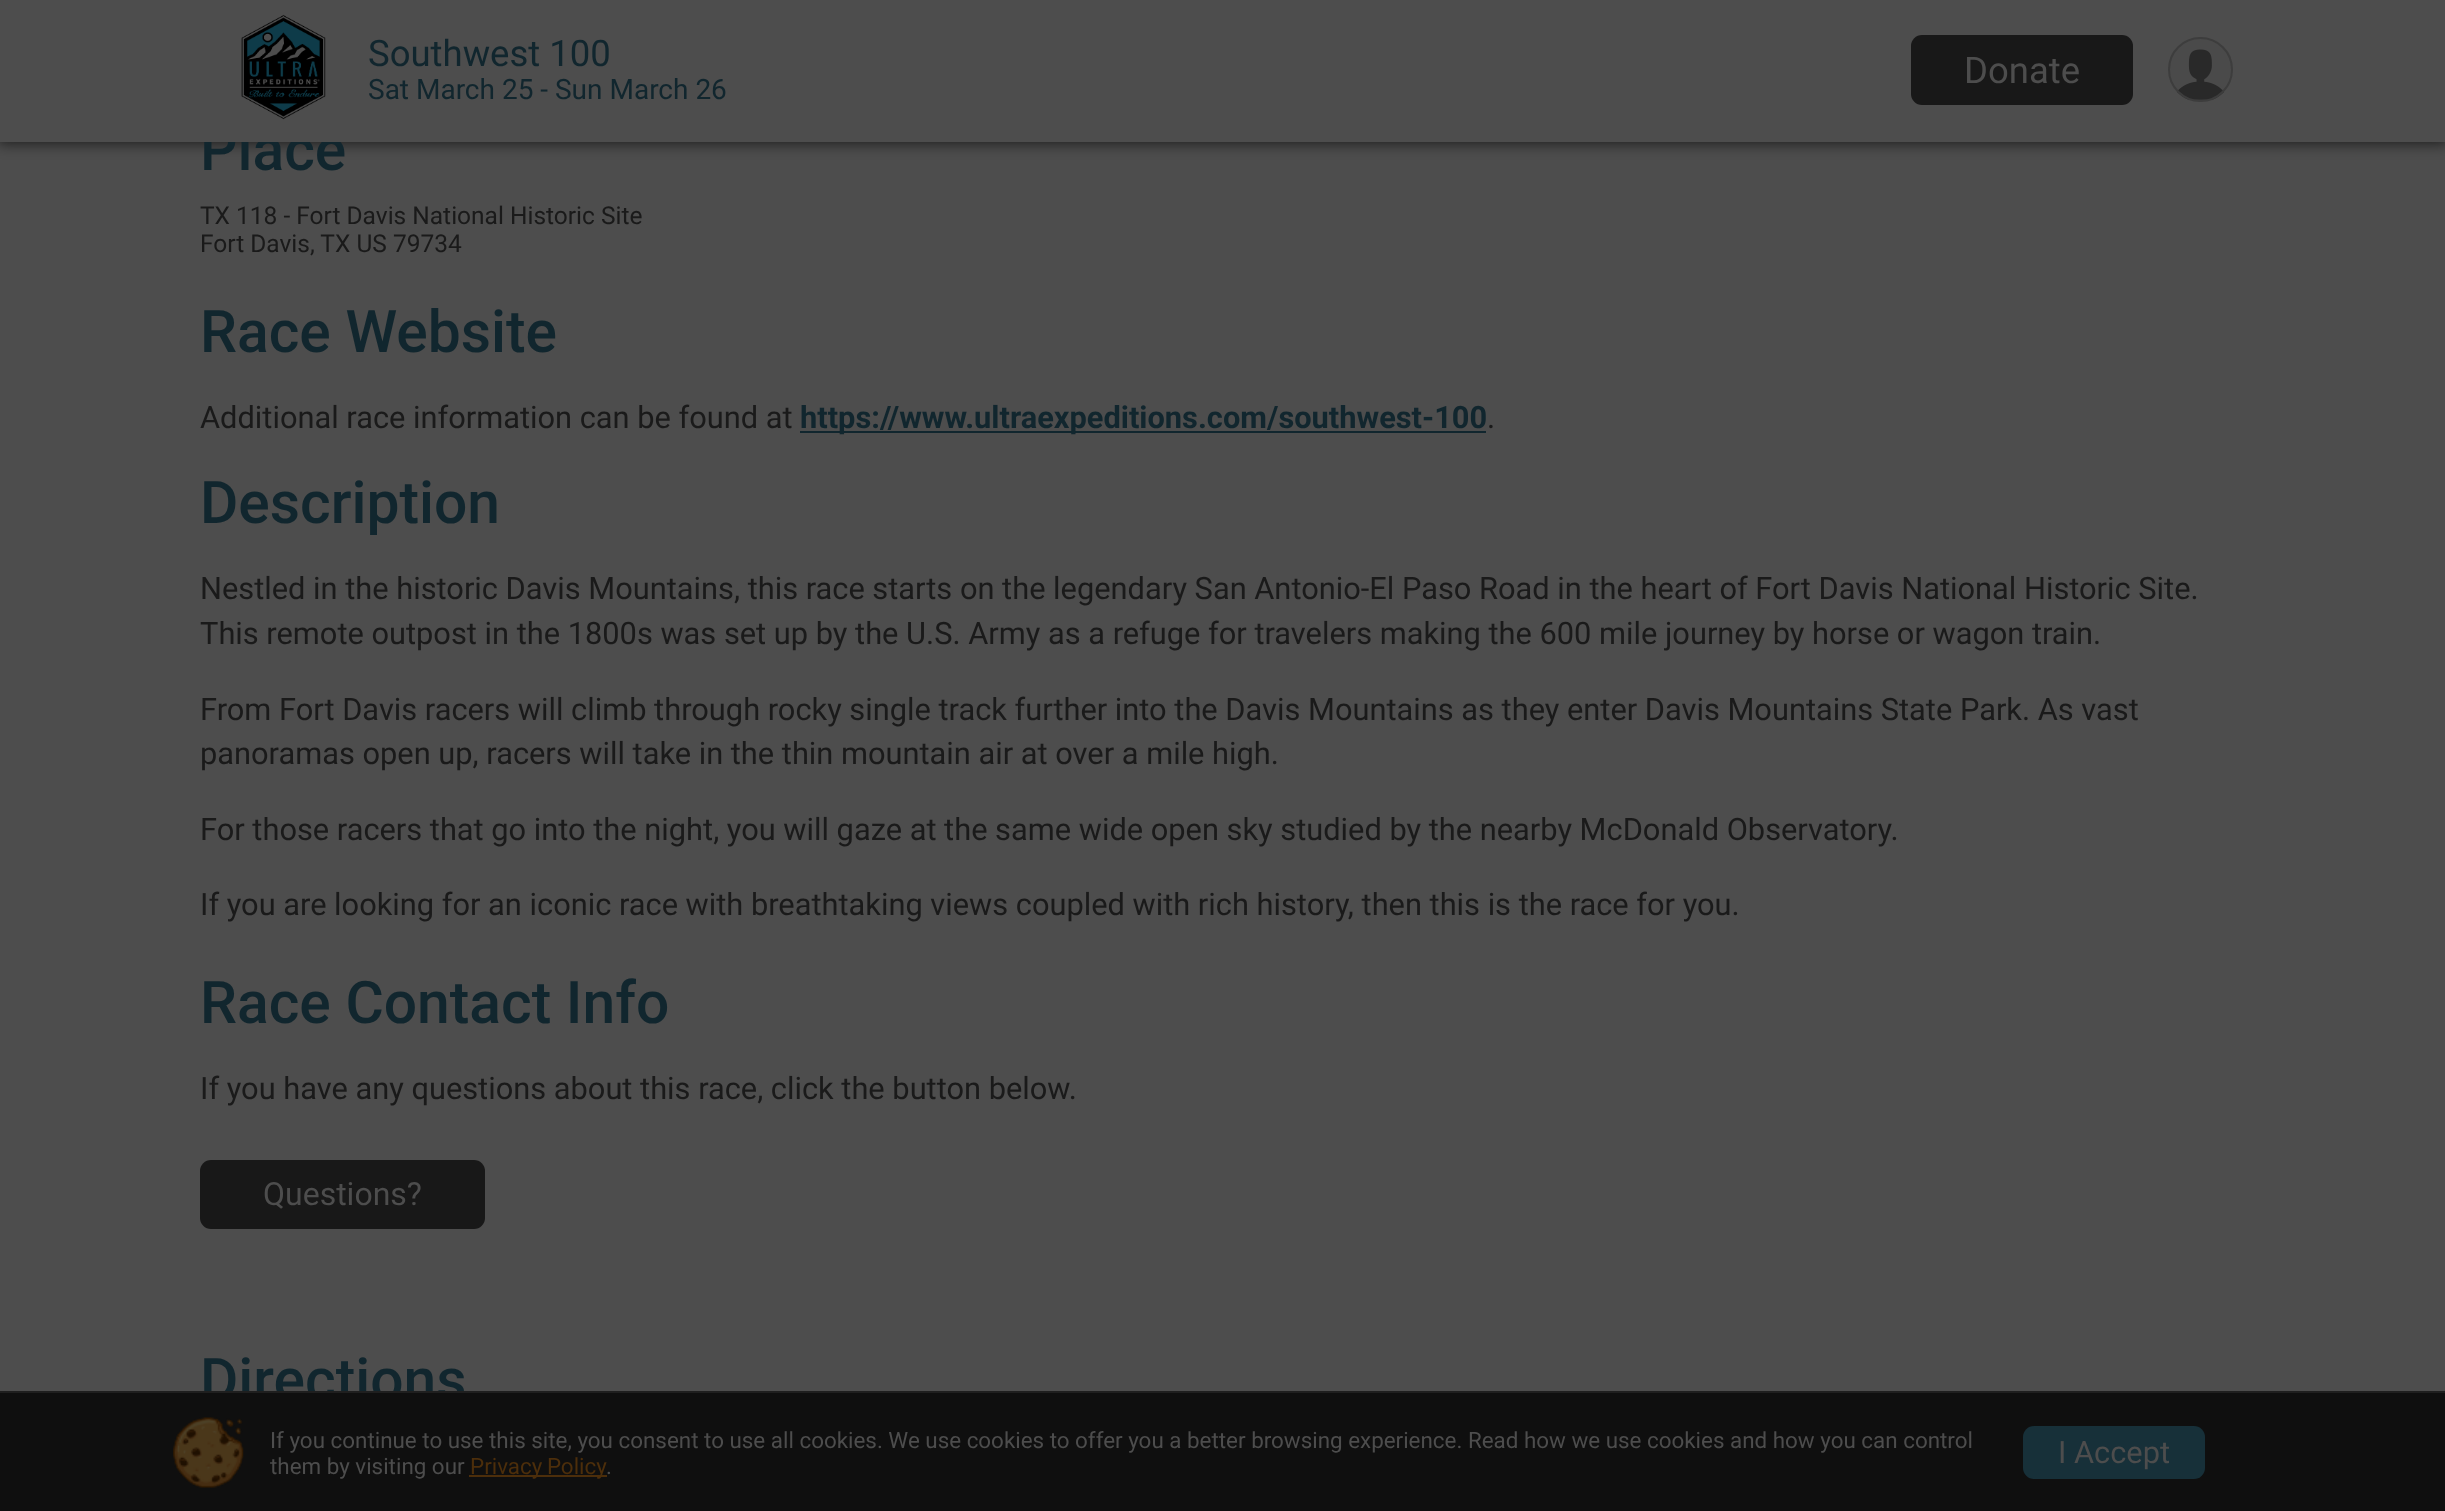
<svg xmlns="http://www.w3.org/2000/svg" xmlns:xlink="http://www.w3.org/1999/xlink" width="2445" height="1511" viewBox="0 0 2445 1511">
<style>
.cls-1{font:500 58.75px Roboto;fill:#11262e}
.cls-2{font:36.5px Roboto;fill:#4d4d4d}
.cls-3{font:28px Roboto;fill:#11262e}
.cls-4{font:36.5px Roboto;fill:#11262e}
.cls-5{font:24.5px Roboto;fill:#1a1a1a}
.cls-6{font:30.8px Roboto;fill:#1a1a1a}
.cls-7{font:bold 30.8px Roboto;fill:#11262e}
.cls-8{font:32px Roboto;fill:#4d4d4d}
.cls-9{font:22.4px Roboto;fill:#4d4d4d}
.cls-10{font:22.4px Roboto;fill:#4c2e0b}
.cls-11{font:30.8px Roboto;fill:#4d4d4d}
</style>
<rect width="100%" height="100%" fill="#4d4d4d"/>
<rect fill="#000000" fill-opacity="0.6" filter="blur(7px)" x="-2" y="-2" width="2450" height="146"/>
<rect fill="#11262e" x="800" y="431" width="686" height="2"/>
<rect fill="#181818" x="200" y="1160" width="285" height="69" rx="11"/>
<text class="cls-1" x="200" y="170">Place</text>
<rect fill="#4d4d4d" x="0" y="0" width="2445" height="142"/>
<rect fill="#181818" x="1911" y="35" width="222" height="70" rx="11"/>
<text class="cls-2" x="1964" y="83">Donate</text>
<image xlink:href="image1.png" x="2170" y="39" width="61" height="61"/>
<circle fill="none" stroke="#3d3d3d" stroke-width="2" cx="2200.5" cy="69.5" r="31.5"/>
<image xlink:href="image0.png" x="241" y="14" width="85" height="106"/>
<text class="cls-3" x="368" y="99">Sat March 25 - Sun March 26</text>
<text class="cls-4" x="368" y="66">Southwest 100</text>
<text class="cls-5"><tspan x="200" y="224">TX 118 - Fort Davis National Historic Site</tspan><tspan x="200" y="252">Fort Davis, TX US 79734</tspan></text>
<text class="cls-1" x="200" y="352">Race Website</text>
<text class="cls-6" x="200" y="428">Additional race information can be found at</text>
<text class="cls-7" x="800" y="428">https://www.ultraexpeditions.com/southwest-100</text>
<text class="cls-6" x="1487" y="428">.</text>
<text class="cls-1" x="200" y="523">Description</text>
<text class="cls-6"><tspan x="200" y="599">Nestled in the historic Davis Mountains, this race starts on the legendary San Antonio-El Paso Road in the heart of Fort Davis National Historic Site.</tspan><tspan x="200" y="644">This remote outpost in the 1800s was set up by the U.S. Army as a refuge for travelers making the 600 mile journey by horse or wagon train.</tspan></text>
<text class="cls-6"><tspan x="200" y="720">From Fort Davis racers will climb through rocky single track further into the Davis Mountains as they enter Davis Mountains State Park. As vast</tspan><tspan x="200" y="764">panoramas open up, racers will take in the thin mountain air at over a mile high.</tspan></text>
<text class="cls-6" x="200" y="840">For those racers that go into the night, you will gaze at the same wide open sky studied by the nearby McDonald Observatory.</text>
<text class="cls-6" x="200" y="915">If you are looking for an iconic race with breathtaking views coupled with rich history, then this is the race for you.</text>
<text class="cls-1" x="200" y="1023">Race Contact Info</text>
<text class="cls-6" x="200" y="1099">If you have any questions about this race, click the button below.</text>
<text class="cls-8" x="263" y="1205">Questions?</text>
<text class="cls-1" x="200" y="1400">Directions</text>
<rect fill="#0f0f0f" x="0" y="1393" width="2445" height="118"/>
<rect fill="#1f1f1f" x="0" y="1391" width="2445" height="2"/>
<image xlink:href="image2.png" x="173" y="1417" width="71" height="71"/>
<text class="cls-9"><tspan x="270" y="1448">If you continue to use this site, you consent to use all cookies. We use cookies to offer you a better browsing experience. Read how we use cookies and how you can control</tspan><tspan x="270" y="1474">them by visiting our</tspan></text>
<rect fill="#4c2e0b" x="469" y="1475" width="138" height="2"/>
<text class="cls-10" x="470" y="1474" word-spacing="-1">Privacy Policy</text>
<text class="cls-9" x="606" y="1474">.</text>
<rect fill="#173039" x="2023" y="1426" width="182" height="53" rx="11"/>
<text class="cls-11" x="2058" y="1463">I Accept</text>
</svg>
